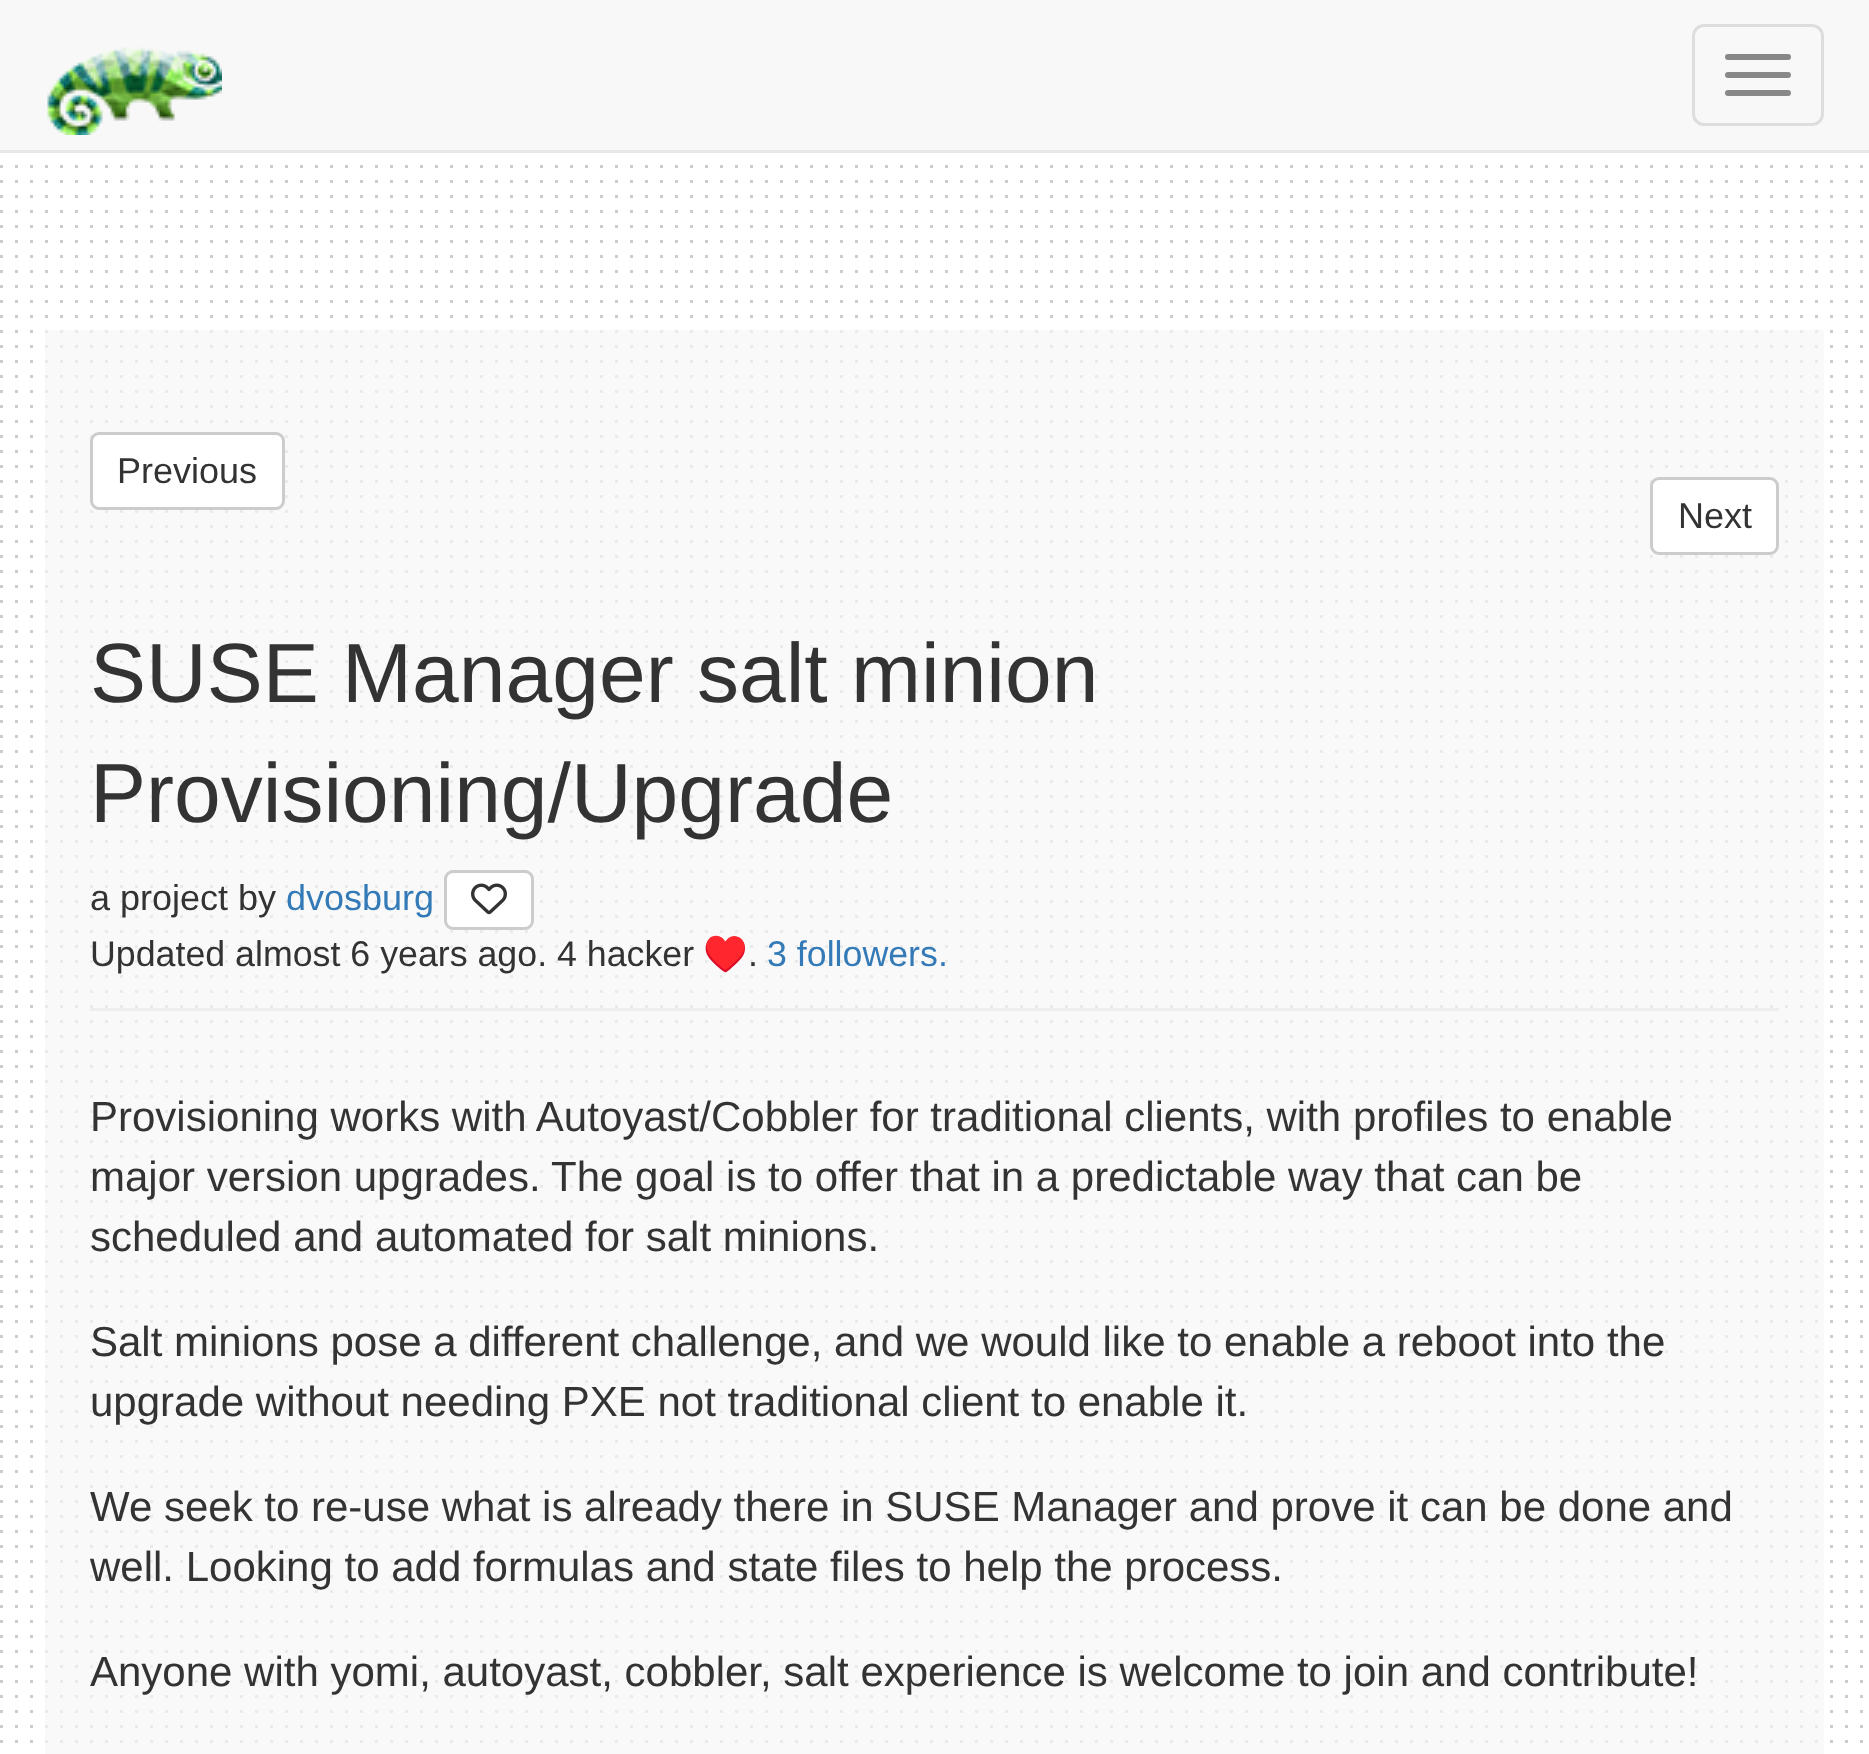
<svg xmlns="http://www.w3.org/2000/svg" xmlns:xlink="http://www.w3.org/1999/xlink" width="1869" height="1754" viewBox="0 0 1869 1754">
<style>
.cls-1{font:36px Liberation Sans;fill:#333333}
.cls-2{font:84px Liberation Sans;fill:#333333}
.cls-3{font:36px Liberation Sans;fill:#337ab7}
.cls-4{font:35.75px Liberation Sans;fill:#333333}
.cls-5{font:35.75px Noto Color Emoji;fill:#333333}
.cls-6{font:35.75px Liberation Sans;fill:#337ab7}
.cls-7{font:42px Liberation Sans;fill:#333333}
</style>
<rect width="100%" height="100%" fill="#ffffff"/>
<image xlink:href="image0.png" x="0" y="153" width="1863" height="1590"/>
<rect fill="#f8f8f8" x="0" y="0" width="1869" height="150"/>
<rect fill="#e7e7e7" x="0" y="150" width="1869" height="3"/>
<image xlink:href="image1.png" x="47" y="47" width="175" height="88"/>
<rect fill="none" stroke="#dddddd" stroke-width="3" x="1693.5" y="25.5" width="129" height="99" rx="10.5"/>
<rect fill="#888888" x="1725" y="54" width="66" height="6" rx="3"/>
<rect fill="#888888" x="1725" y="72" width="66" height="6" rx="3"/>
<rect fill="#888888" x="1725" y="90" width="66" height="6" rx="3"/>
<rect fill="#f6f6f6" fill-opacity="0.7" x="45" y="330" width="1779" height="1424"/>
<rect fill="#ffffff" stroke="#cccccc" stroke-width="3" x="91.5" y="433.5" width="192" height="75" rx="7.5"/>
<rect fill="#ffffff" stroke="#cccccc" stroke-width="3" x="1651.5" y="478.5" width="126" height="75" rx="7.5"/>
<rect fill="#eeeeee" x="90" y="1008" width="1689" height="3"/>
<rect fill="#ffffff" stroke="#cccccc" stroke-width="3" x="445.5" y="871.5" width="87" height="57" rx="7.5"/>
<image xlink:href="image2.png" x="471" y="883" width="36" height="32"/>
<text class="cls-1" x="117" y="483">Previous</text>
<text class="cls-1" x="1678" y="528">Next</text>
<text class="cls-2"><tspan x="90" y="702">SUSE Manager salt minion</tspan><tspan x="90" y="822">Provisioning/Upgrade</tspan></text>
<text class="cls-1" x="90" y="910">a project by</text>
<text class="cls-3" x="286" y="910">dvosburg</text>
<text class="cls-4" x="90" y="966">Updated almost 6 years ago. 4 hacker</text>
<text class="cls-5" x="703" y="966">♥️</text>
<text class="cls-4" x="748" y="966">.</text>
<text class="cls-6" x="767" y="966">3 followers.</text>
<text class="cls-7"><tspan x="90" y="1131">Provisioning works with Autoyast/Cobbler for traditional clients, with profiles to enable</tspan><tspan x="90" y="1191">major version upgrades.</tspan></text>
<text class="cls-7" x="551" y="1191">The goal is to offer that in a predictable way that can be</text>
<text class="cls-7" x="90" y="1251">scheduled and automated for salt minions.</text>
<text class="cls-7"><tspan x="90" y="1356">Salt minions pose a different challenge, and we would like to enable a reboot into the</tspan><tspan x="90" y="1416">upgrade without needing PXE not traditional client to enable it.</tspan></text>
<text class="cls-7"><tspan x="90" y="1521">We seek to re-use what is already there in SUSE Manager and prove it can be done and</tspan><tspan x="90" y="1581">well. Looking to add formulas and state files to help the process.</tspan></text>
<text class="cls-7" x="90" y="1686">Anyone with yomi, autoyast, cobbler, salt experience is welcome to join and contribute!</text>
</svg>
